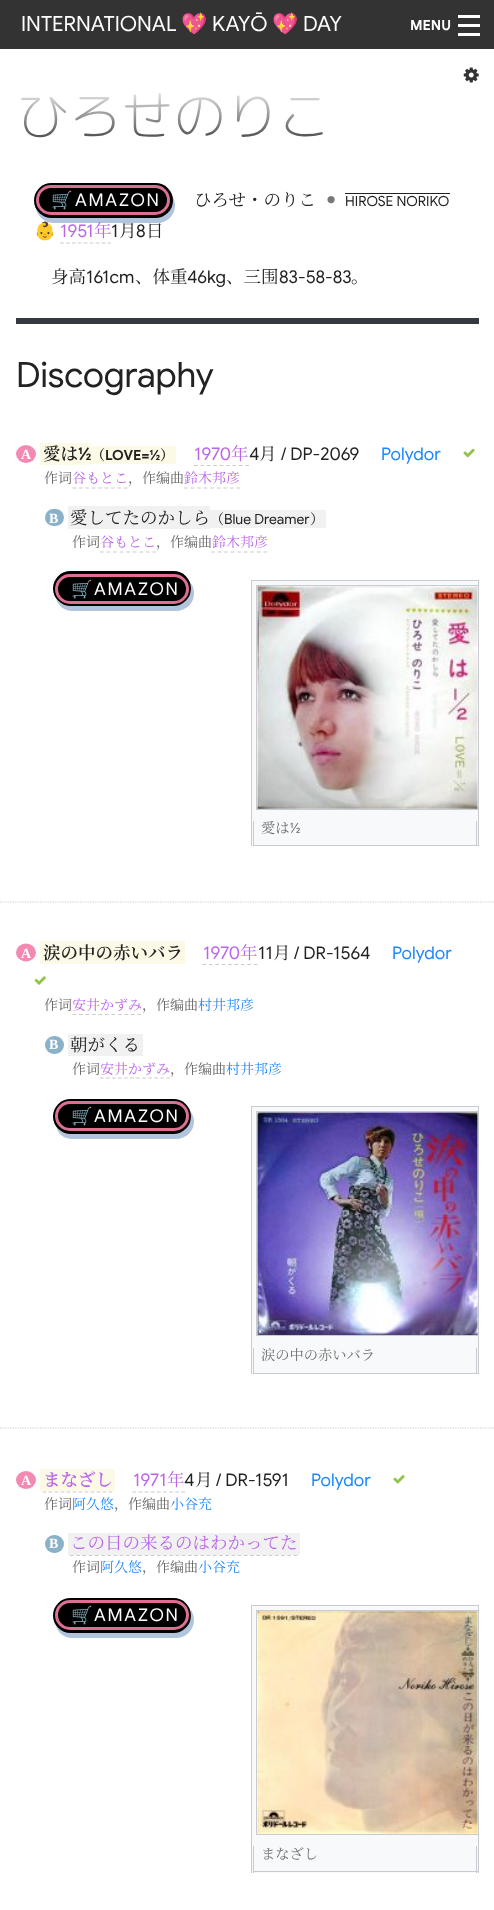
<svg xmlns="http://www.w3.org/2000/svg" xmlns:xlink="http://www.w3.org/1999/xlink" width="494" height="1910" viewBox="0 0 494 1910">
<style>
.cls-1{font:21px Google Sans;fill:#ffffff}
.cls-2{font:21px Noto Color Emoji;fill:#ffffff}
.cls-3{font:bold 14px Google Sans;fill:#ffffff}
.cls-4{font:300 52.5px 'Rounded Mplus 1c';fill:url(#g1)}
.cls-5{font:17.5px Noto Color Emoji;letter-spacing:1.75px;fill:#ffffff}
.cls-6{font:17.5px Google Sans;letter-spacing:1.75px;fill:#ffffff}
.cls-7{font:17.5px Noto Serif SC;fill:#222222}
.cls-8{font:32px Google Sans;fill:#777777}
.cls-9{font:14px Google Sans;fill:#222222}
.cls-10{font:17.5px Noto Color Emoji;fill:#222222}
.cls-11{font:17.5px Google Sans;fill:#ba66e8}
.cls-12{font:17.5px Noto Serif JP;fill:#ba66e8}
.cls-13{font:17.5px Google Sans;fill:#222222}
.cls-14{font:35px Google Sans;fill:#222222}
.cls-15{font:bold 14px Liberation Serif;fill:#ffffff}
.cls-16{font:600 17.5px Noto Serif SC;fill:#222222}
.cls-17{font:bold 17.5px Google Sans;fill:#222222}
.cls-18{font:600 14px Noto Serif SC;fill:#222222}
.cls-19{font:bold 14px Google Sans;fill:#222222}
.cls-20{font:17.5px Google Sans;fill:#1e87fc}
.cls-21{font:14px Noto Serif SC;fill:#666666}
.cls-22{font:14px Noto Serif JP;fill:#ba66e8}
.cls-23{font:14px Noto Serif SC;fill:#222222}
.cls-24{font:14.25px Noto Serif SC;fill:#6f6f6f}
.cls-25{font:14.25px Google Sans;fill:#6f6f6f}
.cls-26{font:14px Noto Serif JP;fill:#1e87fc}
.cls-27{font:600 17.5px Noto Serif JP;fill:#ba66e8}
</style>
<defs>
<clipPath id="clip1"><rect x="253" y="581" width="225" height="233"/></clipPath>
<clipPath id="clip2"><rect x="253" y="1108" width="225" height="232"/></clipPath>
<clipPath id="clip3"><rect x="253" y="1606" width="225" height="233"/></clipPath>
<linearGradient id="g1" gradientUnits="userSpaceOnUse" x1="16" y1="84" x2="16" y2="147"><stop offset="0" stop-color="#ffffff"/><stop offset="1" stop-color="#333333"/></linearGradient>
</defs>
<rect width="100%" height="100%" fill="#ffffff"/>
<rect fill="#333333" x="0" y="0" width="494" height="49"/>
<rect fill="#ffffff" x="458" y="33" width="22" height="3"/>
<rect fill="#ffffff" x="458" y="24" width="22" height="3"/>
<rect fill="#ffffff" x="458" y="15" width="22" height="3"/>
<image xlink:href="image0.png" x="463" y="67" width="16" height="16"/>
<path fill="#b0c4de" d="M36 209C38 217 45 223 54 223H158C167 223 175 215 175 206C175 202 174 198 172 196V200C172 210 165 218 155 218H51C45 218 40 214 36 209Z"/>
<rect fill="#000000" x="34" y="183" width="139" height="35" rx="17.5"/>
<rect fill="none" stroke="#db7093" stroke-width="3" x="37.5" y="186.5" width="131" height="27" rx="13.5"/>
<rect fill="#222222" x="345" y="193" width="105" height="1"/>
<path fill="none" stroke="#cccccc" stroke-width="1.2" stroke-dasharray="3.75 2.19" d="M60 243H111"/>
<rect fill="#343a40" x="16" y="318" width="463" height="6"/>
<path fill="none" stroke="#cccccc" stroke-width="1.2" stroke-dasharray="1.25 1.25" d="M0 902H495"/>
<ellipse fill="#f48ab4" cx="26" cy="454" rx="10" ry="9"/>
<rect fill="#fcf9e7" x="40" y="443" width="51" height="22"/>
<rect fill="#fcf9e7" x="91" y="446" width="85" height="18"/>
<path fill="none" stroke="#cccccc" stroke-width="1.2" stroke-dasharray="3.75 2.65" d="M194 465.5H249"/>
<image xlink:href="image1.png" x="463" y="448" width="12" height="10"/>
<path fill="none" stroke="#cccccc" stroke-width="1.2" stroke-dasharray="3.75 2.65" d="M72.5 488H127.5"/>
<path fill="none" stroke="#cccccc" stroke-width="1.2" stroke-dasharray="3.75 2.81" d="M184 488H240"/>
<rect fill="#8ab1c7" x="45" y="509" width="19" height="17" rx="8.5"/>
<rect fill="#f1f1f1" x="68" y="506" width="142" height="23"/>
<rect fill="#f1f1f1" x="210" y="510" width="116" height="18"/>
<path fill="none" stroke="#cccccc" stroke-width="1.2" stroke-dasharray="3.75 2.81" d="M100 552H156"/>
<path fill="none" stroke="#cccccc" stroke-width="1.2" stroke-dasharray="3.75 2.81" d="M211 552H267.5"/>
<path fill="#b0c4de" d="M56 599C58 606 65 611 72 611H176C186 611 194 603 194 594C194 589 193 585 190 582C191 584 191 587 191 589C191 598 183 606 174 606H70C64 606 59 603 56 599Z"/>
<rect fill="#000000" x="53" y="571" width="138" height="35" rx="17.5"/>
<rect fill="none" stroke="#db7093" stroke-width="3" x="56.5" y="575.5" width="131" height="27" rx="13.5"/>
<rect fill="#f8f9fa" x="252" y="581" width="226" height="265"/>
<rect fill="#c8ccd1" x="251" y="580" width="228" height="1"/>
<rect fill="#c8ccd1" x="478" y="580" width="1" height="266"/>
<rect fill="#c8ccd1" x="251" y="580" width="1" height="266"/>
<rect fill="#ffffff" x="257" y="586" width="221" height="223"/>
<g clip-path="url(#clip1)">
<rect fill="none" stroke="#c8ccd1" x="256.5" y="585.5" width="224" height="224"/>
</g>
<image xlink:href="image2.png" x="257" y="586" width="221" height="223"/>
<rect fill="#c8ccd1" x="476" y="821" width="1" height="25"/>
<rect fill="#c8ccd1" x="253" y="845" width="225" height="1"/>
<rect fill="#c8ccd1" x="253" y="821" width="1" height="25"/>
<path fill="none" stroke="#cccccc" stroke-width="1.2" stroke-dasharray="1.25 1.25" d="M0 1428H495"/>
<ellipse fill="#f48ab4" cx="26" cy="952.5" rx="10" ry="9"/>
<rect fill="#fcf9e7" x="40" y="941" width="145" height="23"/>
<path fill="none" stroke="#cccccc" stroke-width="1.2" stroke-dasharray="3.75 2.65" d="M202.5 964.5H257.5"/>
<image xlink:href="image3.png" x="34" y="976" width="12" height="9"/>
<path fill="none" stroke="#cccccc" stroke-width="1.2" stroke-dasharray="3.75 2.75" d="M72.5 1014.5H141"/>
<rect fill="#8ab1c7" x="45" y="1036" width="19" height="18" rx="9"/>
<rect fill="#f1f1f1" x="68" y="1034" width="75" height="22"/>
<path fill="none" stroke="#cccccc" stroke-width="1.2" stroke-dasharray="3.75 2.27" d="M100 1078H170"/>
<path fill="#b0c4de" d="M56 1126C58 1134 64 1139 72 1139H176C186 1139 194 1131 194 1122C194 1118 193 1114 190 1111L191 1116C191 1126 183 1134 174 1134H70C64 1134 59 1131 56 1126Z"/>
<rect fill="#000000" x="53" y="1099" width="138" height="35" rx="17.5"/>
<rect fill="none" stroke="#db7093" stroke-width="3" x="56.5" y="1102.5" width="131" height="27" rx="13.5"/>
<rect fill="#f8f9fa" x="252" y="1107" width="226" height="267"/>
<rect fill="#c8ccd1" x="251" y="1106" width="228" height="1"/>
<rect fill="#c8ccd1" x="478" y="1106" width="1" height="268"/>
<rect fill="#c8ccd1" x="251" y="1106" width="1" height="268"/>
<rect fill="#ffffff" x="257" y="1112" width="221" height="223"/>
<g clip-path="url(#clip2)">
<rect fill="none" stroke="#c8ccd1" x="256.5" y="1111.5" width="224" height="224"/>
</g>
<image xlink:href="image4.png" x="257" y="1112" width="221" height="223"/>
<rect fill="#c8ccd1" x="476" y="1348" width="1" height="26"/>
<rect fill="#c8ccd1" x="253" y="1373" width="225" height="1"/>
<rect fill="#c8ccd1" x="253" y="1348" width="1" height="26"/>
<ellipse fill="#f48ab4" cx="26" cy="1480" rx="10" ry="9"/>
<rect fill="#fcf9e7" x="40" y="1469" width="75" height="22"/>
<path fill="none" stroke="#cccccc" stroke-width="1.2" stroke-dasharray="3.75 2.27" d="M42.5 1492H112.5"/>
<path fill="none" stroke="#cccccc" stroke-width="1.2" stroke-dasharray="3.75 2.35" d="M132.5 1492H185"/>
<image xlink:href="image5.png" x="393" y="1475" width="12" height="9"/>
<rect fill="#8ab1c7" x="45" y="1535" width="19" height="18" rx="9"/>
<rect fill="#f1f1f1" x="68" y="1533" width="232" height="22"/>
<path fill="none" stroke="#cccccc" stroke-width="1.2" stroke-dasharray="3.75 2.46" d="M70 1555.5H297.5"/>
<path fill="#b0c4de" d="M56 1625C57 1632 64 1638 72 1638H176C186 1638 194 1630 194 1620C194 1617 193 1613 191 1610V1615C191 1625 183 1632 174 1632H70C64 1632 59 1629 56 1625Z"/>
<rect fill="#000000" x="53" y="1598" width="138" height="35" rx="17.5"/>
<rect fill="none" stroke="#db7093" stroke-width="3" x="56.5" y="1601.5" width="131" height="27" rx="13.5"/>
<rect fill="#f8f9fa" x="252" y="1606" width="226" height="267"/>
<rect fill="#c8ccd1" x="251" y="1605" width="228" height="1"/>
<rect fill="#c8ccd1" x="478" y="1605" width="1" height="268"/>
<rect fill="#c8ccd1" x="251" y="1605" width="1" height="268"/>
<rect fill="#ffffff" x="257" y="1611" width="221" height="223"/>
<g clip-path="url(#clip3)">
<rect fill="none" stroke="#c8ccd1" x="256.5" y="1610.5" width="224" height="224"/>
</g>
<image xlink:href="image6.png" x="257" y="1611" width="221" height="223"/>
<rect fill="#c8ccd1" x="476" y="1846" width="1" height="27"/>
<rect fill="#c8ccd1" x="253" y="1871" width="225" height="1"/>
<rect fill="#c8ccd1" x="253" y="1846" width="1" height="27"/>
<text class="cls-1" x="21" y="31">INTERNATIONAL</text>
<text class="cls-2" x="181" y="31">💖</text>
<text class="cls-1" x="212" y="31">KAYŌ</text>
<text class="cls-2" x="272" y="31">💖</text>
<text class="cls-1" x="303" y="31">DAY</text>
<text class="cls-3" x="410" y="30">MENU</text>
<text class="cls-4" x="16" y="135">ひろせのりこ</text>
<text class="cls-5" x="51" y="206">🛒</text>
<text class="cls-6" x="75" y="206">AMAZON</text>
<text class="cls-7" x="194" y="206">ひろせ・のりこ</text>
<text class="cls-8" x="325" y="210">•</text>
<text class="cls-9" x="345" y="206">HIROSE NORIKO</text>
<text class="cls-10" x="34" y="237">👶</text>
<text class="cls-11" x="60" y="237">1951</text>
<text class="cls-12" x="94" y="237">年</text>
<text class="cls-13" x="111" y="237">1</text>
<text class="cls-7" x="119" y="237">月</text>
<text class="cls-13" x="136" y="237">8</text>
<text class="cls-7" x="146" y="237">日</text>
<text class="cls-7" x="51" y="283">身高</text>
<text class="cls-13" x="86" y="283">161cm</text>
<text class="cls-7" x="135" y="283">、体重</text>
<text class="cls-13" x="187" y="283">46kg</text>
<text class="cls-7" x="226" y="283">、三围</text>
<text class="cls-13" x="279" y="283">83-58-83</text>
<text class="cls-7" x="351" y="283">。</text>
<text class="cls-14" x="16" y="387">Discography</text>
<text class="cls-15" x="21" y="459">A</text>
<text class="cls-16" x="43" y="460">愛は</text>
<text class="cls-17" x="78" y="460">½</text>
<text class="cls-18" x="91" y="460">（</text>
<text class="cls-19" x="105" y="460">LOVE=½</text>
<text class="cls-18" x="160" y="460">）</text>
<text class="cls-11" x="194" y="460">1970</text>
<text class="cls-12" x="231" y="460">年</text>
<text class="cls-13" x="249" y="460">4</text>
<text class="cls-7" x="259" y="460">月</text>
<text class="cls-13" x="281" y="460">/ DP-2069</text>
<text class="cls-20" x="381" y="460">Polydor</text>
<text class="cls-21" x="44" y="483">作词</text>
<text class="cls-22" x="72" y="483">谷もとこ</text>
<text class="cls-21" x="128" y="483">，作编曲</text>
<text class="cls-22" x="184" y="483">鈴木邦彦</text>
<text class="cls-15" x="49" y="523">B</text>
<text class="cls-7" x="70" y="524">愛してたのかしら</text>
<text class="cls-23" x="210" y="524">（</text>
<text class="cls-9" x="224" y="524">Blue Dreamer</text>
<text class="cls-23" x="310" y="524">）</text>
<text class="cls-21" x="72" y="547">作词</text>
<text class="cls-22" x="100" y="547">谷もとこ</text>
<text class="cls-21" x="156" y="547">，作编曲</text>
<text class="cls-22" x="212" y="547">鈴木邦彦</text>
<text class="cls-5" x="71" y="595">🛒</text>
<text class="cls-6" x="94" y="595">AMAZON</text>
<text class="cls-24" x="261" y="833">愛は</text>
<text class="cls-25" x="290" y="833">½</text>
<text class="cls-15" x="21" y="958">A</text>
<text class="cls-16" x="43" y="959">涙の中の赤いバラ</text>
<text class="cls-11" x="203" y="959">1970</text>
<text class="cls-12" x="240" y="959">年</text>
<text class="cls-13" x="258" y="959">11</text>
<text class="cls-7" x="273" y="959">月</text>
<text class="cls-13" x="294" y="959">/ DR-1564</text>
<text class="cls-20" x="392" y="959">Polydor</text>
<text class="cls-21" x="44" y="1010">作词</text>
<text class="cls-22" x="72" y="1010">安井かずみ</text>
<text class="cls-21" x="142" y="1010">，作编曲</text>
<text class="cls-26" x="198" y="1010">村井邦彦</text>
<text class="cls-15" x="49" y="1049">B</text>
<text class="cls-7" x="70" y="1051">朝がくる</text>
<text class="cls-21" x="72" y="1074">作词</text>
<text class="cls-22" x="100" y="1074">安井かずみ</text>
<text class="cls-21" x="170" y="1074">，作编曲</text>
<text class="cls-26" x="226" y="1074">村井邦彦</text>
<text class="cls-5" x="71" y="1122">🛒</text>
<text class="cls-6" x="94" y="1122">AMAZON</text>
<text class="cls-24" x="261" y="1360">涙の中の赤いバラ</text>
<text class="cls-15" x="21" y="1485">A</text>
<text class="cls-27" x="43" y="1486">まなざし</text>
<text class="cls-11" x="133" y="1486">1971</text>
<text class="cls-12" x="167" y="1486">年</text>
<text class="cls-13" x="184" y="1486">4</text>
<text class="cls-7" x="195" y="1486">月</text>
<text class="cls-13" x="216" y="1486">/ DR-1591</text>
<text class="cls-20" x="311" y="1486">Polydor</text>
<text class="cls-21" x="44" y="1509">作词</text>
<text class="cls-26" x="72" y="1509">阿久悠</text>
<text class="cls-21" x="114" y="1509">，作编曲</text>
<text class="cls-26" x="170" y="1509">小谷充</text>
<text class="cls-15" x="49" y="1548">B</text>
<text class="cls-12" x="70" y="1549">この日の来るのはわかってた</text>
<text class="cls-21" x="72" y="1572">作词</text>
<text class="cls-26" x="100" y="1572">阿久悠</text>
<text class="cls-21" x="142" y="1572">，作编曲</text>
<text class="cls-26" x="198" y="1572">小谷充</text>
<text class="cls-5" x="71" y="1621">🛒</text>
<text class="cls-6" x="94" y="1621">AMAZON</text>
<text class="cls-24" x="261" y="1859">まなざし</text>
</svg>
